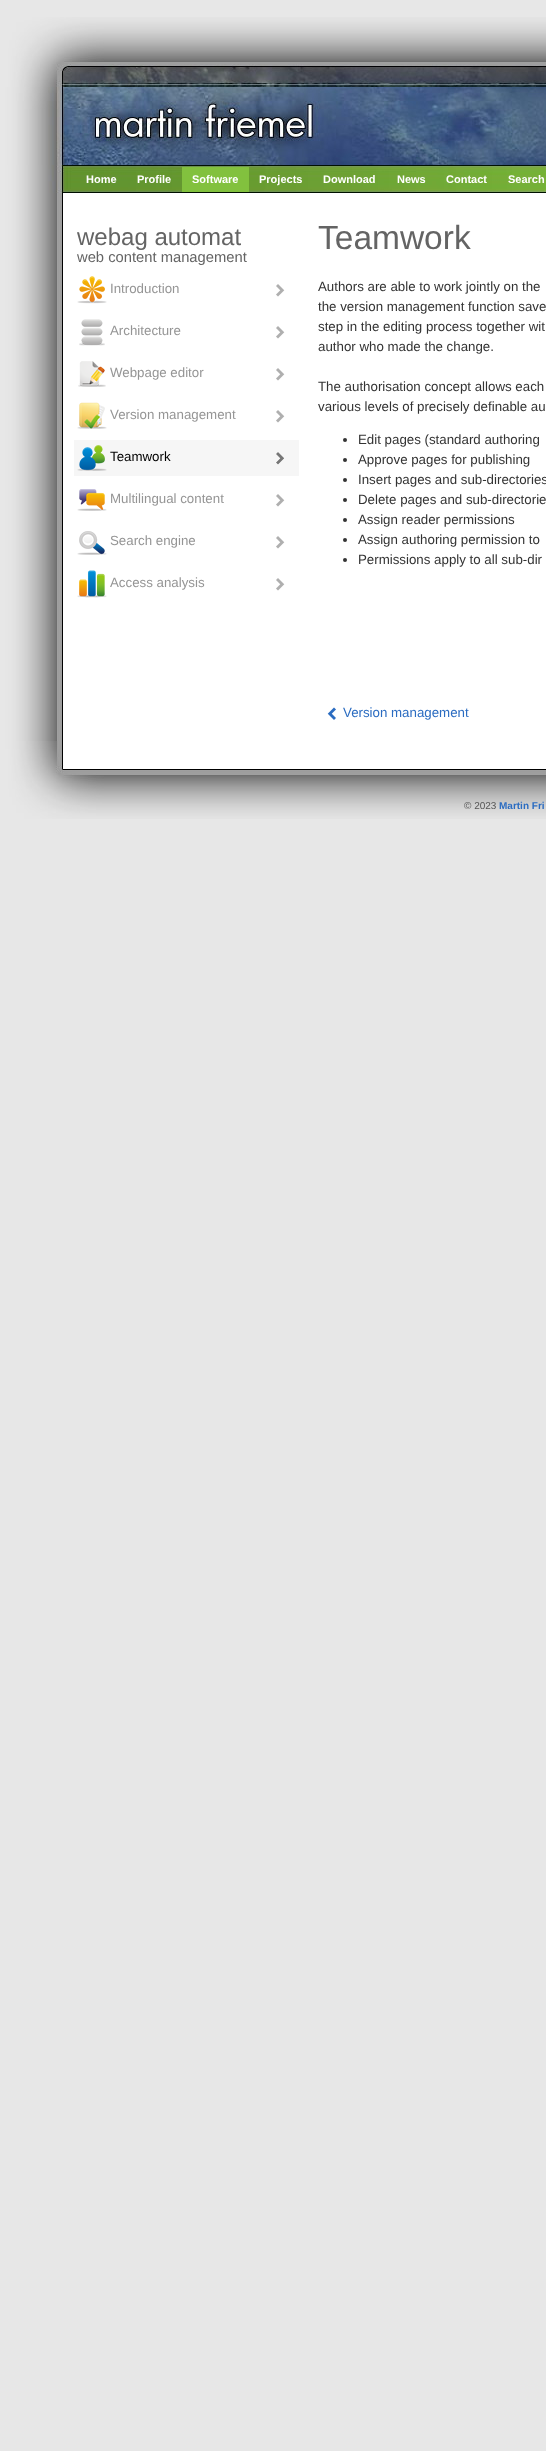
<svg xmlns="http://www.w3.org/2000/svg" xmlns:xlink="http://www.w3.org/1999/xlink" width="546" height="2451" viewBox="0 0 546 2451">
<style>
.cls-1{font:bold 11px Liberation Sans;fill:#ffffff}
.cls-2{font:24px Liberation Sans;fill:#646464}
.cls-3{font:14.75px Liberation Sans;fill:#646464}
.cls-4{font:13.3px Liberation Sans;fill:#959595}
.cls-5{font:13.3px Liberation Sans;fill:#000000}
.cls-6{font:33.5px Liberation Sans;fill:#646464}
.cls-7{font:13.3px Liberation Sans;fill:#333333}
.cls-8{font:13.3px Liberation Sans;fill:#2b6cc1}
.cls-9{font:10px Liberation Sans;fill:#555555}
.cls-10{font:bold 10px Liberation Sans;fill:#2b6cc1}
</style>
<rect width="100%" height="100%" fill="#e7e7e7"/>
<rect fill="#ffffff" x="63" y="193" width="483" height="548"/>
<image xlink:href="image0.png" x="0" y="17" width="546" height="70"/>
<image xlink:href="image1.png" x="0" y="87" width="546" height="78"/>
<image xlink:href="image2.png" x="0" y="165" width="546" height="28"/>
<rect fill="#82c13e" x="182" y="167" width="67" height="25"/>
<image xlink:href="image3.png" x="0" y="193" width="63" height="548"/>
<image xlink:href="image4.png" x="276" y="284" width="9" height="13"/>
<image xlink:href="image5.png" x="77" y="276" width="30" height="28"/>
<image xlink:href="image4.png" x="276" y="326" width="9" height="13"/>
<image xlink:href="image6.png" x="79" y="319" width="26" height="27"/>
<image xlink:href="image4.png" x="276" y="368" width="9" height="13"/>
<image xlink:href="image7.png" x="78" y="361" width="28" height="26"/>
<image xlink:href="image4.png" x="276" y="410" width="9" height="13"/>
<image xlink:href="image8.png" x="77" y="402" width="30" height="27"/>
<rect fill="#f6f6f6" x="74" y="440" width="225" height="36"/>
<image xlink:href="image9.png" x="275" y="452" width="9" height="13"/>
<image xlink:href="image10.png" x="77" y="445" width="30" height="26"/>
<image xlink:href="image4.png" x="276" y="494" width="9" height="13"/>
<image xlink:href="image11.png" x="77" y="489" width="30" height="22"/>
<image xlink:href="image4.png" x="276" y="536" width="9" height="13"/>
<image xlink:href="image12.png" x="77" y="531" width="30" height="24"/>
<image xlink:href="image4.png" x="276" y="578" width="9" height="13"/>
<image xlink:href="image13.png" x="77" y="570" width="30" height="28"/>
<circle fill="#333333" cx="345" cy="440" r="2"/>
<circle fill="#333333" cx="345" cy="460" r="2"/>
<circle fill="#333333" cx="345" cy="480" r="2"/>
<circle fill="#333333" cx="345" cy="500" r="2"/>
<circle fill="#333333" cx="345" cy="520" r="2"/>
<circle fill="#333333" cx="345" cy="540" r="2"/>
<circle fill="#333333" cx="345" cy="560" r="2"/>
<image xlink:href="image14.png" x="327" y="707" width="9" height="13"/>
<image xlink:href="image15.png" x="0" y="741" width="546" height="78"/>
<text class="cls-1" x="86" y="183">Home</text>
<text class="cls-1" x="137" y="183">Profile</text>
<text class="cls-1" x="192" y="183">Software</text>
<text class="cls-1" x="259" y="183">Projects</text>
<text class="cls-1" x="323" y="183">Download</text>
<text class="cls-1" x="397" y="183">News</text>
<text class="cls-1" x="446" y="183">Contact</text>
<text class="cls-1" x="508" y="183">Search</text>
<text class="cls-2" x="77" y="245">webag automat</text>
<text class="cls-3" x="77" y="262">web content management</text>
<text class="cls-4" x="110" y="293">Introduction</text>
<text class="cls-4" x="110" y="335">Architecture</text>
<text class="cls-4" x="110" y="377">Webpage editor</text>
<text class="cls-4" x="110" y="419">Version management</text>
<text class="cls-5" x="110" y="461">Teamwork</text>
<text class="cls-4" x="110" y="503">Multilingual content</text>
<text class="cls-4" x="110" y="545">Search engine</text>
<text class="cls-4" x="110" y="587">Access analysis</text>
<text class="cls-6" x="318" y="249">Teamwork</text>
<text class="cls-7"><tspan x="318" y="291">Authors are able to work jointly on the</tspan><tspan x="318" y="311">the version management function save</tspan><tspan x="318" y="331">step in the editing process together wit</tspan><tspan x="318" y="351">author who made the change.</tspan></text>
<text class="cls-7"><tspan x="318" y="391">The authorisation concept allows each</tspan><tspan x="318" y="411">various levels of precisely definable au</tspan></text>
<text class="cls-7"><tspan x="358" y="444">Edit pages (standard authoring</tspan><tspan x="358" y="464">Approve pages for publishing</tspan><tspan x="358" y="484">Insert pages and sub-directories</tspan><tspan x="358" y="504">Delete pages and sub-directorie</tspan><tspan x="358" y="524">Assign reader permissions</tspan><tspan x="358" y="544">Assign authoring permission to</tspan><tspan x="358" y="564">Permissions apply to all sub-dir</tspan></text>
<text class="cls-8" x="343" y="717">Version management</text>
<text class="cls-9" x="464" y="809">© 2023</text>
<text class="cls-10" x="499" y="809">Martin Fri</text>
</svg>
